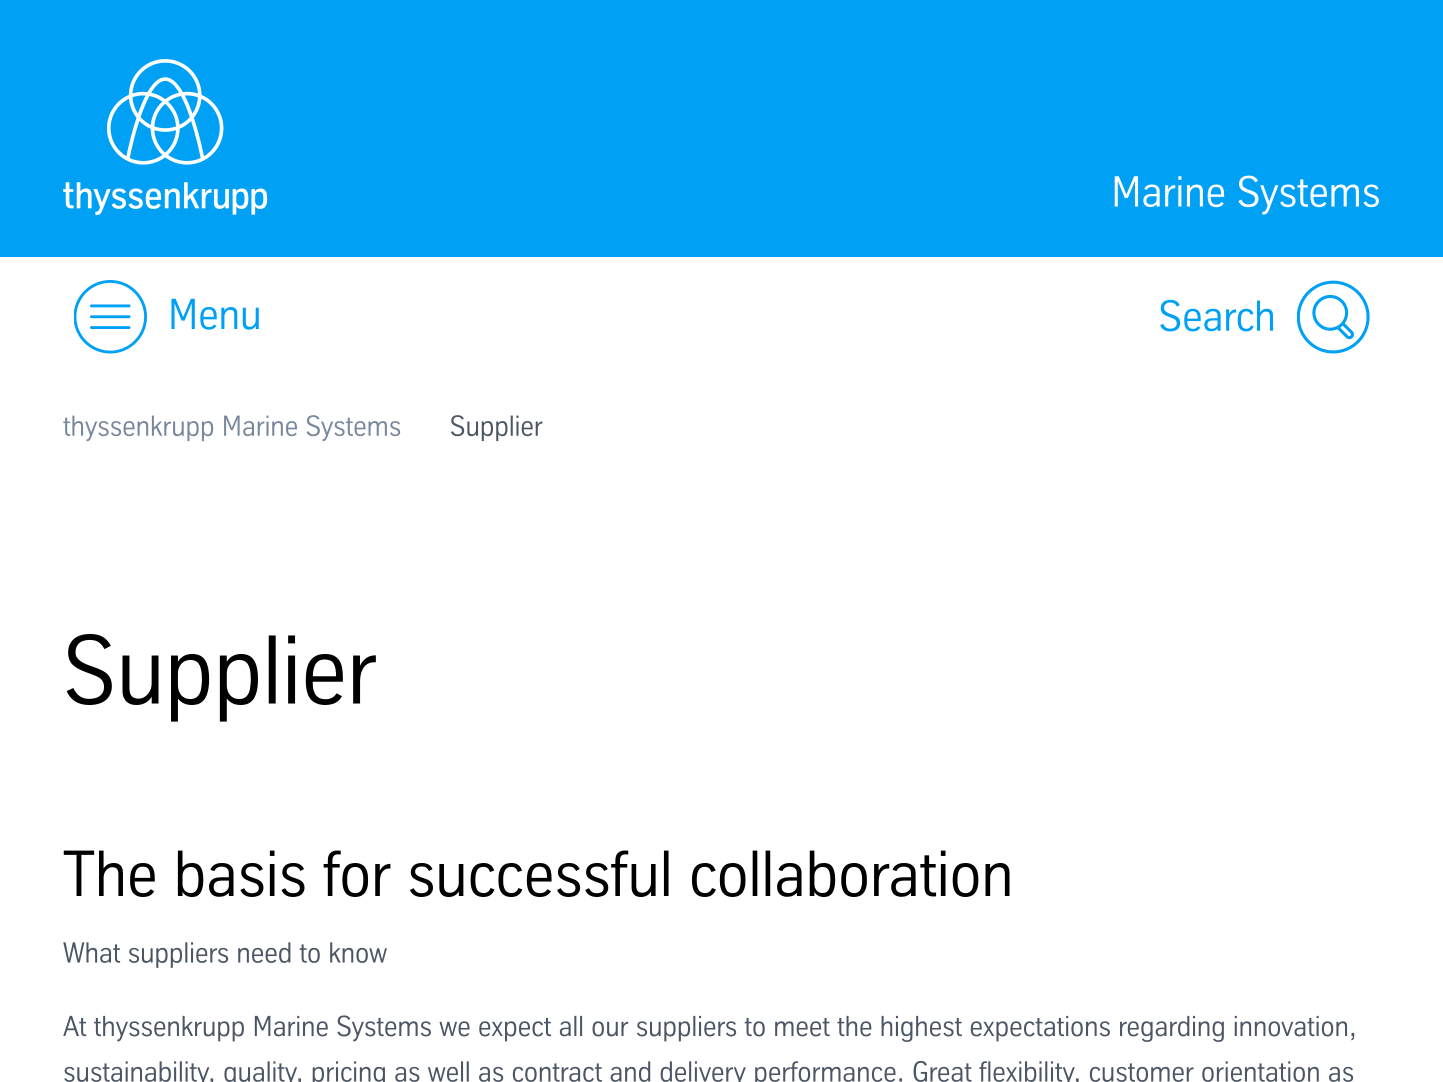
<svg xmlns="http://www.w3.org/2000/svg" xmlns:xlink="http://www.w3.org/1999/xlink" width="1443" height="1082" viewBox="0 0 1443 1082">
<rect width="100%" height="100%" fill="#ffffff"/>
<rect fill="#00a0f5" x="0" y="0" width="1443" height="257"/>
<image xlink:href="image0.png" x="63" y="59" width="205" height="156"/>
<image xlink:href="image1.png" x="1114" y="175" width="265" height="40"/>
<image xlink:href="image2.png" x="74" y="280" width="73" height="74"/>
<image xlink:href="image3.png" x="171" y="298" width="88" height="32"/>
<image xlink:href="image4.png" x="1160" y="299" width="113" height="33"/>
<image xlink:href="image5.png" x="1297" y="280" width="73" height="74"/>
<image xlink:href="image6.png" x="63" y="415" width="338" height="27"/>
<image xlink:href="image7.png" x="450" y="415" width="93" height="27"/>
<image xlink:href="image8.png" x="66" y="634" width="310" height="88"/>
<image xlink:href="image9.png" x="63" y="850" width="947" height="47"/>
<image xlink:href="image10.png" x="63" y="942" width="324" height="26"/>
<image xlink:href="image11.png" x="63" y="1015" width="1292" height="27"/>
<image xlink:href="image12.png" x="64" y="1060" width="1290" height="22"/>
</svg>
